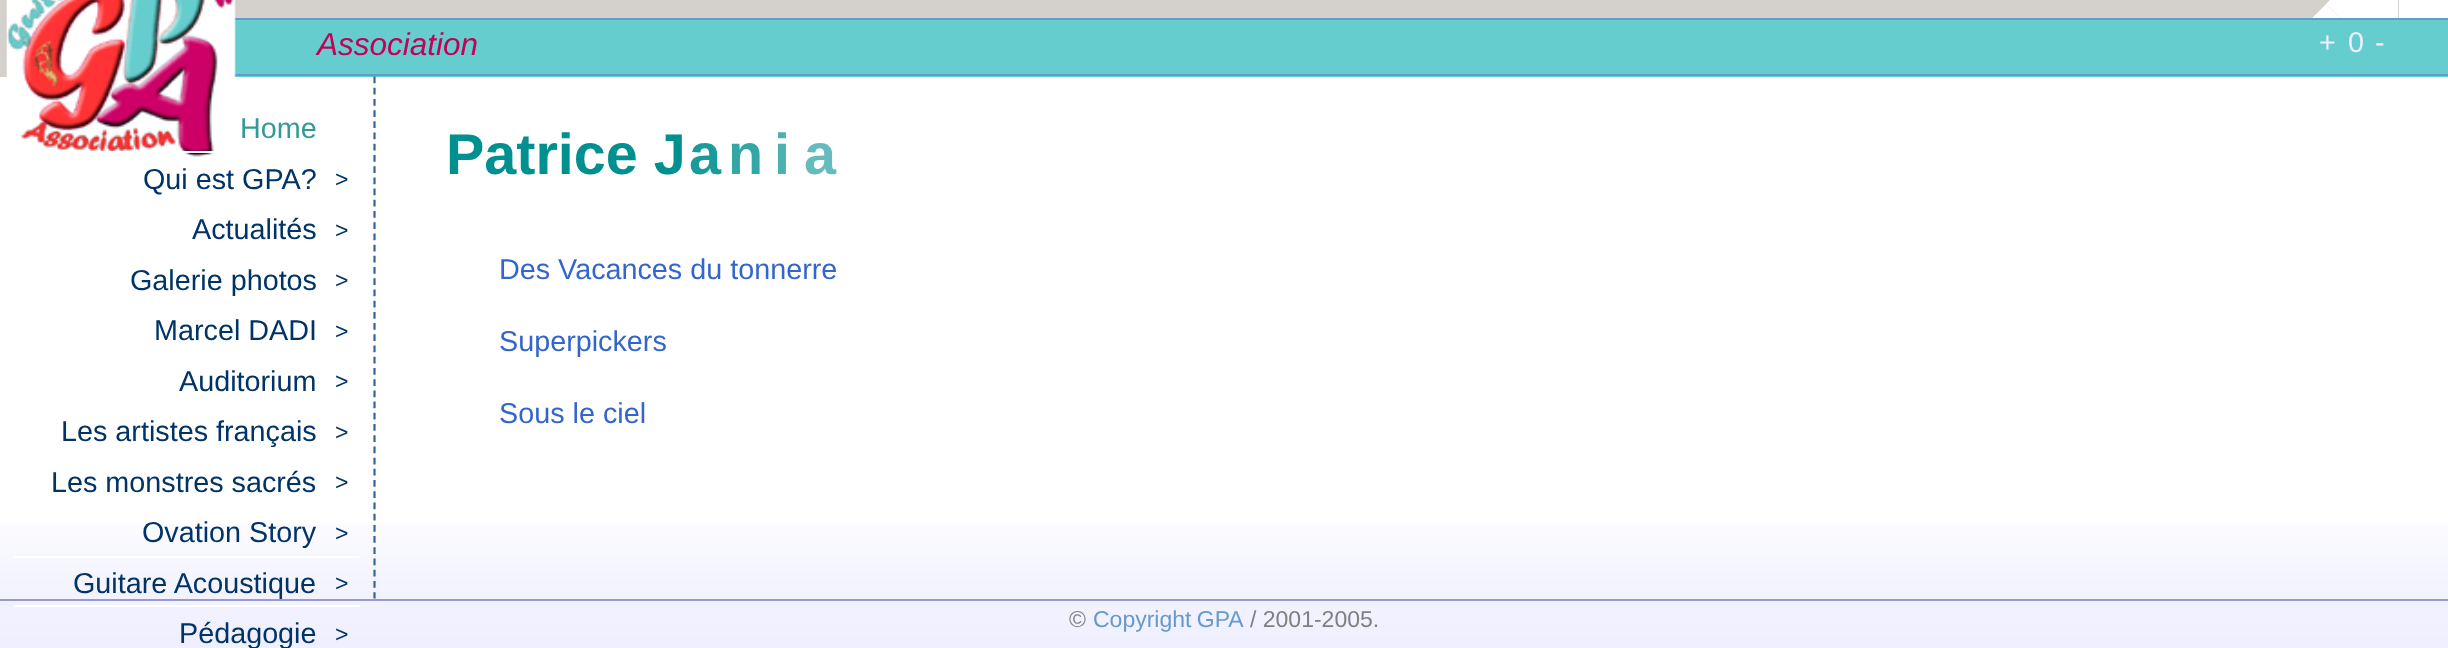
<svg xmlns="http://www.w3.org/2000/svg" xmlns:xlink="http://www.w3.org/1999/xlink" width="2448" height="648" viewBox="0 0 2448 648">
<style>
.cls-1{font:italic 31.5px Liberation Sans;fill:#c30157}
.cls-2{font:28.75px Liberation Sans;fill:#eeeeff}
.cls-3{font:28.75px Liberation Sans;fill:#339999}
.cls-4{font:28.75px Liberation Sans;fill:#003366}
.cls-5{font:23px Liberation Sans;fill:#003366}
.cls-6{font:bold 57.5px Liberation Sans;fill:#009090}
.cls-7{font:bold 57.5px Liberation Sans;fill:#199b9b}
.cls-8{font:bold 57.5px Liberation Sans;fill:#33a6a6}
.cls-9{font:bold 57.5px Liberation Sans;fill:#4cb1b1}
.cls-10{font:bold 57.5px Liberation Sans;fill:#66bcbc}
.cls-11{font:28.75px Liberation Sans;fill:#3366cc}
.cls-12{font:23px Liberation Sans;fill:#808080}
.cls-13{font:23px Liberation Sans;fill:#6699cc}
</style>
<rect width="100%" height="100%" fill="#ffffff"/>
<image xlink:href="image0.png" x="0" y="524" width="2448" height="124"/>
<rect fill="#d4d0cb" x="0" y="0" width="2399" height="77"/>
<path fill="#ffffff" d="M2398-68V76L2326 4Z"/>
<path fill="#ffffff" d="M2398 76H2254L2326 4Z"/>
<path fill="#d4d0cb" d="M2254 76V-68L2326 4Z"/>
<rect fill="#65cdcd" x="234" y="20" width="2214" height="57"/>
<rect fill="#6699cc" x="234" y="18" width="2214" height="2"/>
<rect fill="#6699cc" x="234" y="74" width="2214" height="2"/>
<image xlink:href="image1.png" x="6" y="0" width="230" height="157"/>
<rect fill="#ffffff" x="60" y="151" width="154" height="2"/>
<rect fill="#ffffff" x="14" y="556" width="346" height="2"/>
<rect fill="#ffffff" x="14" y="605" width="346" height="2"/>
<path fill="none" stroke="#336699" stroke-width="2.2" stroke-dasharray="6.75 4.46" d="M374.5 76.5V598.5"/>
<rect fill="#9999cc" x="0" y="599" width="2448" height="2"/>
<text class="cls-1" x="317" y="55">Association</text>
<text class="cls-2" x="2319" y="52">+</text>
<text class="cls-2" x="2348" y="52">0</text>
<text class="cls-2" x="2375" y="52">-</text>
<text class="cls-3" x="240" y="138">Home</text>
<text class="cls-4" x="143" y="189">Qui est GPA?</text>
<text class="cls-5" x="335" y="187">&gt;</text>
<text class="cls-4" x="192" y="239">Actualités</text>
<text class="cls-5" x="335" y="238">&gt;</text>
<text class="cls-4" x="130" y="290">Galerie photos</text>
<text class="cls-5" x="335" y="288">&gt;</text>
<text class="cls-4" x="154" y="340">Marcel DADI</text>
<text class="cls-5" x="335" y="339">&gt;</text>
<text class="cls-4" x="179" y="391">Auditorium</text>
<text class="cls-5" x="335" y="389">&gt;</text>
<text class="cls-4" x="61" y="441">Les artistes français</text>
<text class="cls-5" x="335" y="440">&gt;</text>
<text class="cls-4" x="51" y="492">Les monstres sacrés</text>
<text class="cls-5" x="335" y="490">&gt;</text>
<text class="cls-4" x="142" y="542">Ovation Story</text>
<text class="cls-5" x="335" y="541">&gt;</text>
<text class="cls-4" x="73" y="593">Guitare Acoustique</text>
<text class="cls-5" x="335" y="591">&gt;</text>
<text class="cls-4" x="179" y="643">Pédagogie</text>
<text class="cls-5" x="335" y="642">&gt;</text>
<text class="cls-6" x="446" y="174">Patrice J</text>
<text class="cls-7" x="689" y="174">a</text>
<text class="cls-8" x="728" y="174">n</text>
<text class="cls-9" x="774" y="174">i</text>
<text class="cls-10" x="804" y="174">a</text>
<text class="cls-11" x="499" y="279">Des Vacances du tonnerre</text>
<text class="cls-11" x="499" y="351">Superpickers</text>
<text class="cls-11" x="499" y="423">Sous le ciel</text>
<text class="cls-12" x="1069" y="627">©</text>
<text class="cls-13" x="1093" y="627" word-spacing="-1">Copyright GPA</text>
<text class="cls-12" x="1250" y="627">/ 2001-2005.</text>
</svg>
